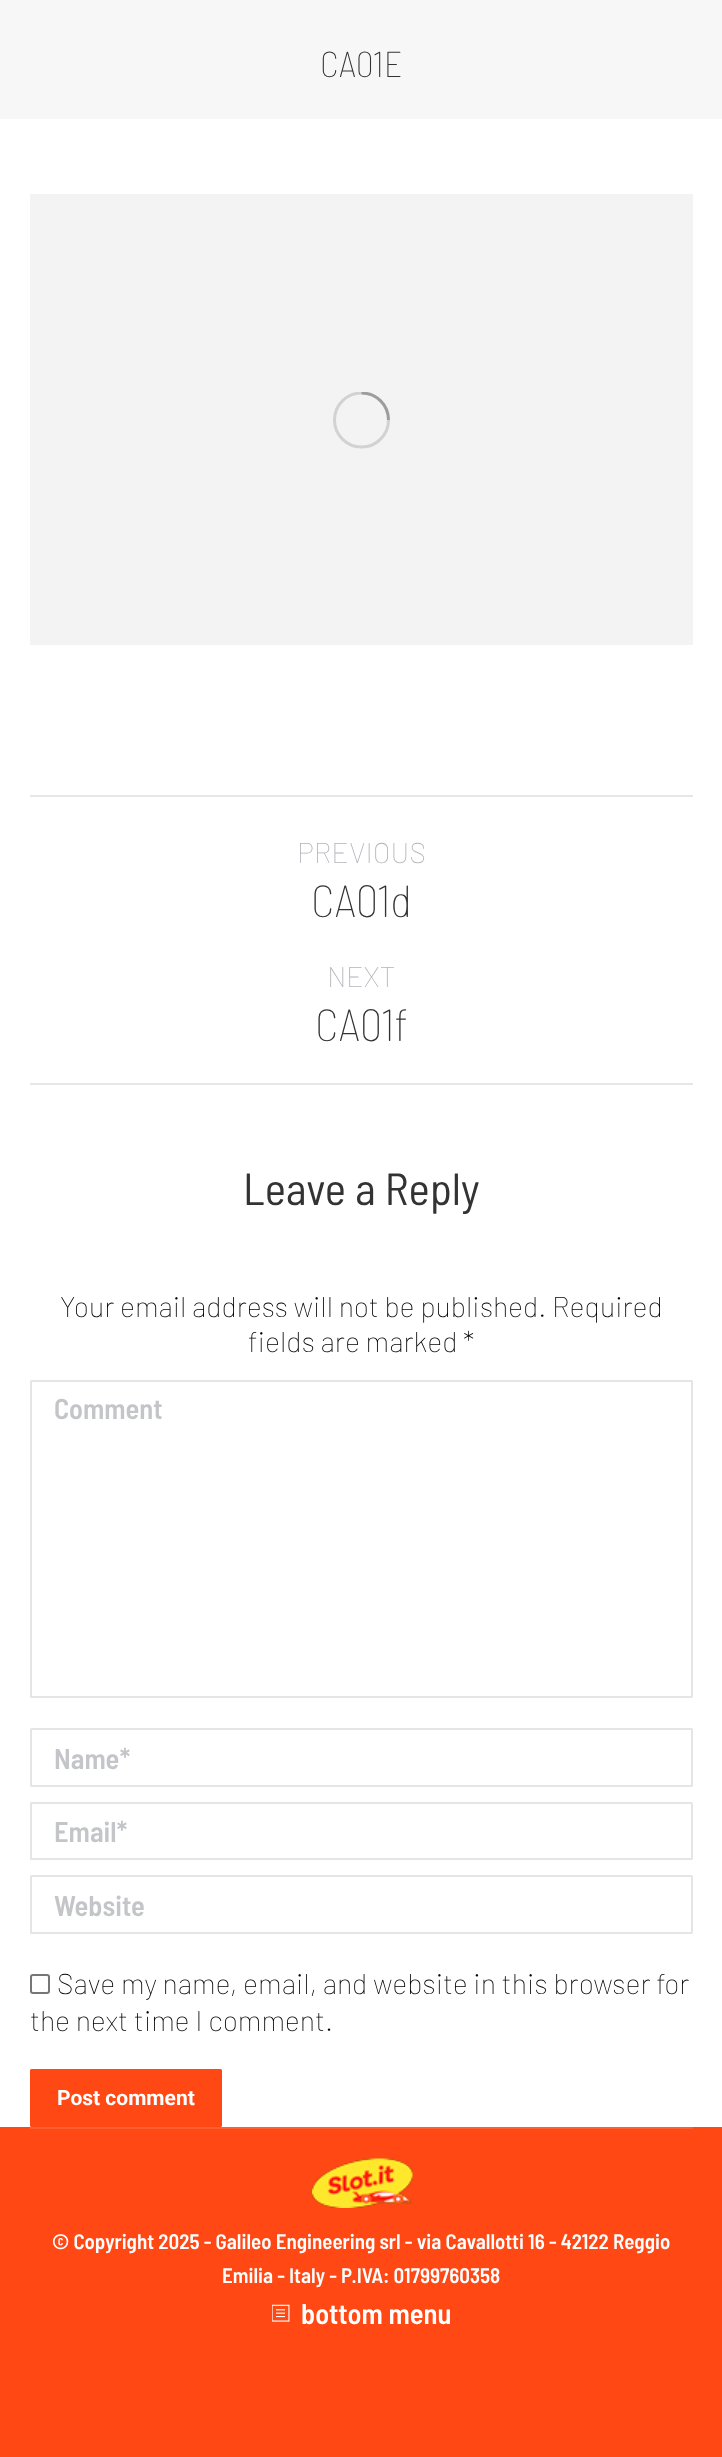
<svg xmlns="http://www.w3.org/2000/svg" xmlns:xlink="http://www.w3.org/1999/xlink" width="722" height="2457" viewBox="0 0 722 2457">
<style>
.cls-1{font:100 36px Barlow Semi Condensed;fill:#333333}
.cls-2{font:100 28.5px Barlow;fill:#b4b5bb}
.cls-3{font:100 45px Barlow Semi Condensed;fill:#333333}
.cls-4{font:45px Barlow Semi Condensed;fill:#333333}
.cls-5{font:100 28.5px Barlow;fill:#000000}
.cls-6{font:600 28.5px Barlow Semi Condensed;fill:#c4c5c9}
.cls-7{font:bold 21px Roboto;fill:#ffffff}
.cls-8{font:600 21px Barlow Semi Condensed;fill:#ffffff}
.cls-9{font:600 28.5px Barlow Semi Condensed;fill:#ffffff}
</style>
<defs>
<clipPath id="clip1"><rect x="333" y="392" width="57" height="57"/></clipPath>
</defs>
<rect width="100%" height="100%" fill="#ff4814"/>
<rect fill="#ffffff" x="0" y="119" width="722" height="2008"/>
<rect fill="#f7f7f7" x="0" y="0" width="722" height="119"/>
<rect fill="#f3f3f3" x="30" y="194" width="663" height="451"/>
<g clip-path="url(#clip1)">
<circle fill="none" stroke="#d2d2d2" stroke-width="3" cx="361.5" cy="420" r="27"/>
<path fill="none" stroke="#000000" stroke-opacity="0.25" stroke-width="3" d="M388.5 420C388.5 405 376.5 393 361.5 393"/>
</g>
<rect fill="#e7e7e7" x="30" y="795" width="663" height="2"/>
<rect fill="#e7e7e7" x="30" y="1083" width="663" height="2"/>
<rect fill="none" stroke="#e5e5e5" stroke-width="2" x="31" y="1381" width="661" height="316" rx="0.5"/>
<rect fill="none" stroke="#e5e5e5" stroke-width="2" x="31" y="1729" width="661" height="57" rx="0.5"/>
<rect fill="none" stroke="#e5e5e5" stroke-width="2" x="31" y="1803" width="661" height="56" rx="0.5"/>
<rect fill="none" stroke="#e5e5e5" stroke-width="2" x="31" y="1876" width="661" height="57" rx="0.5"/>
<rect fill="none" stroke="#767676" stroke-width="2" x="31" y="1975" width="18" height="18" rx="2"/>
<rect fill="#ff4814" x="30" y="2069" width="192" height="58" rx="1.5"/>
<rect fill="#ff5e30" x="30" y="2127" width="663" height="2"/>
<image xlink:href="image0.png" x="312" y="2158" width="101" height="50"/>
<image xlink:href="image1.png" x="272" y="2304" width="18" height="18"/>
<text class="cls-1" x="320" y="77">CA01E</text>
<text class="cls-2" x="297" y="863">PREVIOUS</text>
<text class="cls-3" x="311" y="917">CA01d</text>
<text class="cls-2" x="327" y="987">NEXT</text>
<text class="cls-3" x="315" y="1041">CA01f</text>
<text class="cls-4" x="243" y="1205">Leave a Reply</text>
<text class="cls-5" x="60" y="1317">Your email address will not be published. Required</text>
<text class="cls-5" x="248" y="1352">fields are marked *</text>
<text class="cls-6" x="54" y="1419">Comment</text>
<text class="cls-6" x="54" y="1769">Name*</text>
<text class="cls-6" x="54" y="1842">Email*</text>
<text class="cls-6" x="54" y="1916">Website</text>
<text class="cls-5" x="57" y="1994">Save my name, email, and website in this browser for</text>
<text class="cls-5" x="30" y="2031">the next time I comment.</text>
<text class="cls-7" x="57" y="2105">Post comment</text>
<text class="cls-8" x="52" y="2249">© Copyright 2025 - Galileo Engineering srl - via Cavallotti 16 - 42122 Reggio</text>
<text class="cls-8" x="222" y="2283">Emilia - Italy - P.IVA: 01799760358</text>
<text class="cls-9" x="301" y="2324">bottom menu</text>
</svg>
